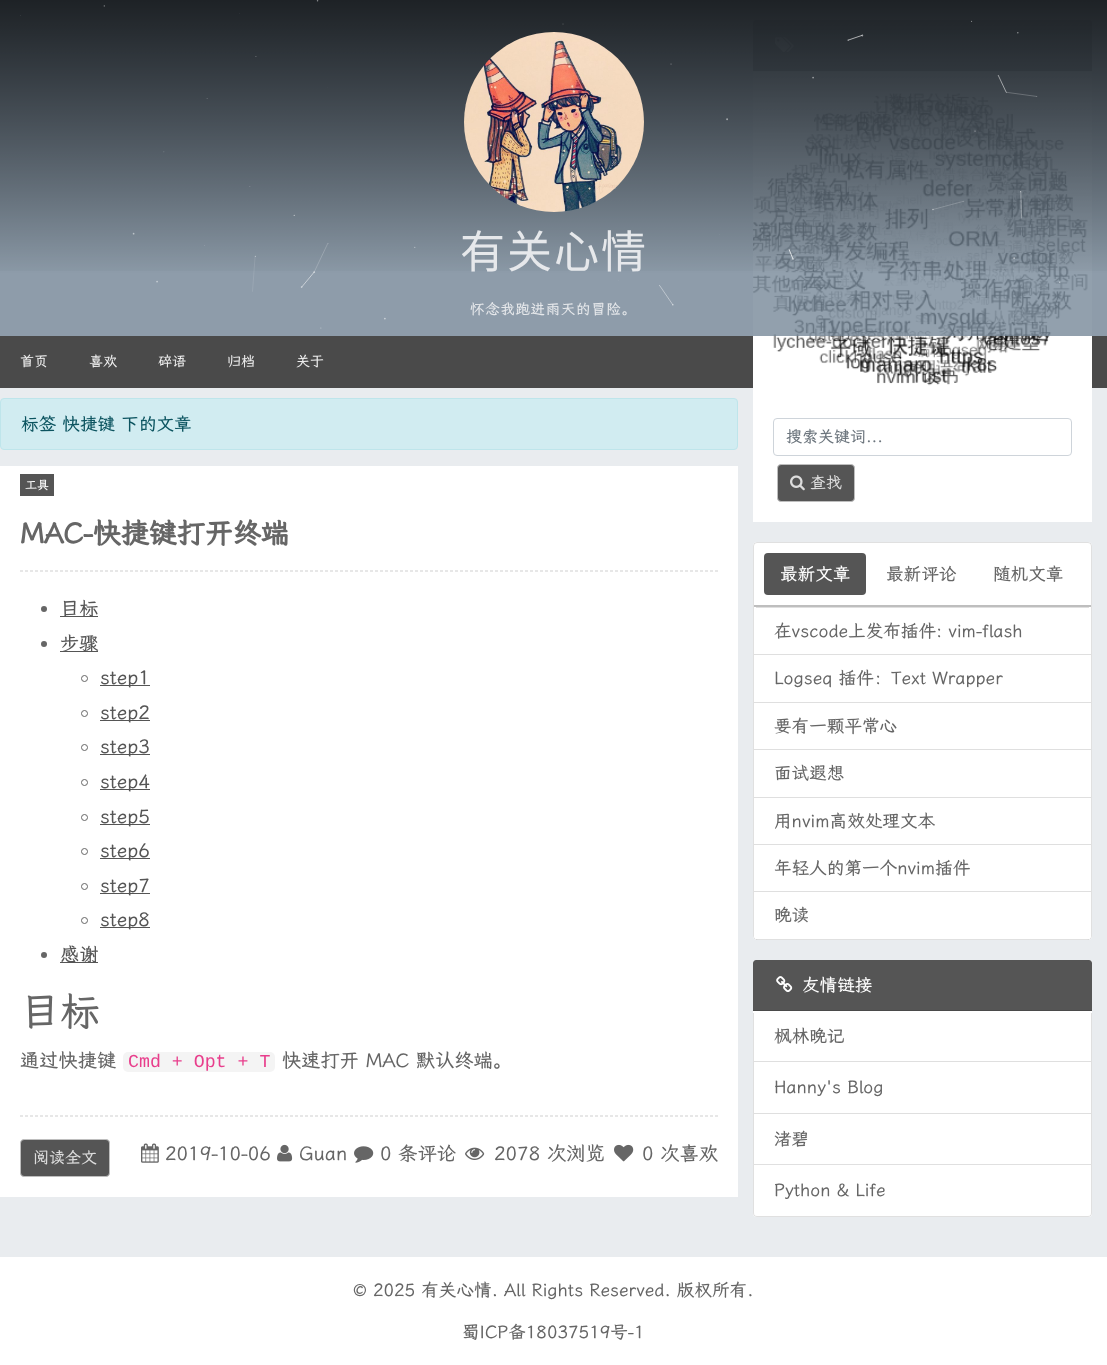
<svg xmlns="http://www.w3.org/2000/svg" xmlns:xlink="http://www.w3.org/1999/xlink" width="1107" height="1365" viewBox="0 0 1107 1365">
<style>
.cls-1{font:45px Noto Sans CJK SC;letter-spacing:2px;fill:#e6e8eb}
.cls-2{font:14.4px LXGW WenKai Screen;letter-spacing:0.75px;fill:#e6e8eb}
.cls-3{font:14px LXGW WenKai Screen;fill:#eeeeee}
.cls-4{font:17.6px LXGW WenKai Screen;fill:#0c5460}
.cls-5{font:12px LXGW WenKai Screen;fill:#ffffff}
.cls-6{font:bold 28px LXGW WenKai Screen;fill:#666666}
.cls-7{font:19.25px LXGW WenKai Screen;fill:#555555}
.cls-8{font:40px LXGW WenKai Screen;fill:#666666}
.cls-9{font:19.25px LXGW WenKai Screen;fill:#666666}
.cls-10{font:18.25px Liberation Mono;fill:#e83e8c}
.cls-11{font:16px LXGW WenKai Screen;fill:#dddddd}
.cls-12{font:16px LXGW WenKai Screen;fill:#6c757d}
.cls-13{font:17.6px LXGW WenKai Screen;fill:#ffffff}
.cls-14{font:17.6px LXGW WenKai Screen;fill:#666666}
</style>
<defs>
<linearGradient id="g1" gradientUnits="userSpaceOnUse" x1="554" y1="-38" x2="554" y2="336"><stop offset="0" stop-color="#000000"/><stop offset="0.85" stop-color="#000000" stop-opacity="0"/></linearGradient>
<linearGradient id="g2" gradientUnits="userSpaceOnUse" x1="554" y1="-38" x2="554" y2="336"><stop offset="0" stop-color="#000000" stop-opacity="0.8"/><stop offset="0.85" stop-color="#000000" stop-opacity="0"/></linearGradient>
</defs>
<rect width="100%" height="100%" fill="#e9ecef"/>
<rect fill="#4a4a4a" x="0" y="336" width="1107" height="52"/>
<rect fill="#ffffff" x="753" y="414" width="339" height="108"/>
<rect fill="#ffffff" x="753" y="20" width="339" height="398" rx="4"/>
<path fill="#555555" d="M756 20H1089C1090.5 20 1092 21.5 1092 23V71H753V23C753 21.5 754.5 20 756 20Z"/>
<rect fill="#4a4a4a" x="753" y="70" width="339" height="1"/>
<image xlink:href="image7.png" x="775" y="37" width="19" height="15"/>
<image xlink:href="image8.png" x="753" y="93" width="335" height="293"/>
<rect fill="url(#g1)" x="0" y="0" width="1107" height="273"/>
<rect fill="#778899" fill-opacity="0.8" x="0" y="0" width="1107" height="336"/>
<rect fill="url(#g2)" x="0" y="0" width="1107" height="271"/>
<image xlink:href="image0.png" x="20" y="0" width="1041" height="329"/>
<image xlink:href="image1.png" x="464" y="32" width="180" height="180"/>
<rect fill="#d1ecf1" stroke="#bee5eb" x="0.5" y="398.5" width="737" height="51" rx="3.5"/>
<rect fill="#ffffff" x="0" y="466" width="738" height="731"/>
<rect fill="#555555" x="20" y="474" width="34" height="22"/>
<path fill="none" stroke="#e7e7e7" stroke-dasharray="3 2" d="M20 570.5H718"/>
<rect fill="#e7e7e7" x="717" y="570" width="1" height="2"/>
<path fill="none" stroke="#e7e7e7" stroke-dasharray="3 2" d="M20 571.5H718"/>
<circle fill="#666666" cx="44" cy="609" r="3"/>
<rect fill="#555555" x="60" y="616" width="38" height="1"/>
<circle fill="#666666" cx="44" cy="644" r="3"/>
<rect fill="#555555" x="60" y="651" width="38" height="1"/>
<circle fill="none" stroke="#666666" cx="84.5" cy="678.5" r="3"/>
<rect fill="#555555" x="100" y="685" width="50" height="1"/>
<circle fill="none" stroke="#666666" cx="84.5" cy="713.5" r="3"/>
<rect fill="#555555" x="100" y="720" width="50" height="1"/>
<circle fill="none" stroke="#666666" cx="84.5" cy="747.5" r="3"/>
<rect fill="#555555" x="100" y="754" width="50" height="1"/>
<circle fill="none" stroke="#666666" cx="84.5" cy="782.5" r="3"/>
<rect fill="#555555" x="100" y="789" width="50" height="1"/>
<circle fill="none" stroke="#666666" cx="84.5" cy="817.5" r="3"/>
<rect fill="#555555" x="100" y="824" width="50" height="1"/>
<circle fill="none" stroke="#666666" cx="84.5" cy="851.5" r="3"/>
<rect fill="#555555" x="100" y="858" width="50" height="1"/>
<circle fill="none" stroke="#666666" cx="84.5" cy="886.5" r="3"/>
<rect fill="#555555" x="100" y="893" width="50" height="1"/>
<circle fill="none" stroke="#666666" cx="84.5" cy="920.5" r="3"/>
<rect fill="#555555" x="100" y="927" width="50" height="1"/>
<circle fill="#666666" cx="44" cy="955" r="3"/>
<rect fill="#555555" x="60" y="962" width="38" height="1"/>
<rect fill="#f4f4f4" x="123" y="1052" width="152" height="20" rx="5"/>
<path fill="none" stroke="#e7e7e7" stroke-dasharray="3 2" d="M20 1115.5H718"/>
<rect fill="#e7e7e7" x="717" y="1115" width="1" height="2"/>
<path fill="none" stroke="#e7e7e7" stroke-dasharray="3 2" d="M20 1116.5H718"/>
<rect fill="#555555" stroke="#bebebe" x="20.5" y="1139.5" width="89" height="37" rx="3.5"/>
<image xlink:href="image2.png" x="141" y="1143" width="18" height="20"/>
<image xlink:href="image3.png" x="277" y="1144" width="16" height="18"/>
<image xlink:href="image4.png" x="354" y="1146" width="20" height="17"/>
<image xlink:href="image5.png" x="465" y="1147" width="20" height="13"/>
<image xlink:href="image6.png" x="614" y="1144" width="20" height="18"/>
<rect fill="none" stroke="#ced4da" x="773.5" y="418.5" width="298" height="37" rx="3.5"/>
<rect fill="#555555" stroke="#bebebe" x="777.5" y="464.5" width="77" height="37" rx="3.5"/>
<image xlink:href="image9.png" x="790" y="475" width="15" height="16"/>
<rect fill="#ffffff" x="753" y="542" width="339" height="398" rx="4"/>
<rect fill="none" stroke="#000000" stroke-opacity="0.12" x="753.5" y="542.5" width="338" height="397" rx="3.5"/>
<rect fill="#bebebe" x="754" y="605" width="337" height="2"/>
<rect fill="#555555" x="764" y="553" width="102" height="42" rx="4"/>
<rect fill="#dfdfdf" x="756" y="607" width="333" height="1"/>
<rect fill="#dfdfdf" x="754" y="654" width="337" height="1"/>
<rect fill="#dfdfdf" x="754" y="702" width="337" height="1"/>
<rect fill="#dfdfdf" x="754" y="749" width="337" height="1"/>
<rect fill="#dfdfdf" x="754" y="797" width="337" height="1"/>
<rect fill="#dfdfdf" x="754" y="844" width="337" height="1"/>
<path fill="#ffffff" d="M754 891H1091V936C1091 938 1089 940 1087 940H758C756 940 754 938 754 936Z"/>
<rect fill="#dfdfdf" x="754" y="891" width="337" height="1"/>
<rect fill="#000000" fill-opacity="0.12" x="756" y="939" width="333" height="1"/>
<rect fill="#ffffff" x="753" y="960" width="339" height="257" rx="4"/>
<rect fill="#e0e0e0" x="753" y="1013" width="1" height="49"/>
<path fill="#555555" d="M756 960H1089C1090.5 960 1092 961.5 1092 963V1011H753V963C753 961.5 754.5 960 756 960Z"/>
<rect fill="#4a4a4a" x="753" y="1010" width="339" height="1"/>
<image xlink:href="image10.png" x="776" y="976" width="17" height="17"/>
<rect fill="#dfdfdf" x="1091" y="1013" width="1" height="49"/>
<rect fill="none" stroke="#dfdfdf" x="753.5" y="1061.5" width="338" height="52"/>
<rect fill="none" stroke="#dfdfdf" x="753.5" y="1113.5" width="338" height="51"/>
<path fill="#ffffff" d="M753 1164H1092V1213C1092 1215 1090 1217 1088 1217H757C755 1217 753 1215 753 1213Z"/>
<path fill="none" stroke="#000000" stroke-opacity="0.12" d="M753.5 1164.5H1091.5V1213C1091.5 1215 1090 1216.5 1088 1216.5H757C755 1216.5 753.5 1215 753.5 1213Z"/>
<rect fill="#ffffff" x="0" y="1257" width="1107" height="108"/>
<text class="cls-1" x="460" y="268">有关心情</text>
<text class="cls-2" x="470" y="314">怀念我跑进雨天的冒险。</text>
<text class="cls-3" x="20" y="366">首页</text>
<text class="cls-3" x="89" y="366">喜欢</text>
<text class="cls-3" x="158" y="366">碎语</text>
<text class="cls-3" x="227" y="366">归档</text>
<text class="cls-3" x="296" y="366">关于</text>
<text class="cls-4" x="21" y="430">标签 快捷键 下的文章</text>
<text class="cls-5" x="25" y="489">工具</text>
<text class="cls-6" x="20" y="543">MAC-快捷键打开终端</text>
<text class="cls-7"><tspan x="60" y="615">目标</tspan><tspan x="60" y="650">步骤</tspan></text>
<text class="cls-7"><tspan x="100" y="684">step1</tspan><tspan x="100" y="719">step2</tspan><tspan x="100" y="753">step3</tspan><tspan x="100" y="788">step4</tspan><tspan x="100" y="823">step5</tspan><tspan x="100" y="857">step6</tspan><tspan x="100" y="892">step7</tspan><tspan x="100" y="926">step8</tspan></text>
<text class="cls-7" x="60" y="961">感谢</text>
<text class="cls-8" x="20" y="1025">目标</text>
<text class="cls-9" x="20" y="1067">通过快捷键</text>
<text class="cls-10" x="128" y="1067">Cmd + Opt + T</text>
<text class="cls-9" x="282" y="1067">快速打开 MAC 默认终端。</text>
<text class="cls-11" x="33" y="1163">阅读全文</text>
<text class="cls-9" x="165" y="1160">2019-10-06</text>
<text class="cls-9" x="299" y="1160">Guan</text>
<text class="cls-9" x="380" y="1160">0 条评论</text>
<text class="cls-9" x="494" y="1160">2078 次浏览</text>
<text class="cls-9" x="642" y="1160">0 次喜欢</text>
<text class="cls-12" x="786" y="442">搜索关键词...</text>
<text class="cls-11" x="810" y="488">查找</text>
<text class="cls-13" x="780" y="580">最新文章</text>
<text class="cls-14" x="886" y="580">最新评论</text>
<text class="cls-14" x="993" y="580">随机文章</text>
<text class="cls-14" x="774" y="637">在vscode上发布插件: vim-flash</text>
<text class="cls-14" x="774" y="684">Logseq 插件：Text Wrapper</text>
<text class="cls-14" x="774" y="732">要有一颗平常心</text>
<text class="cls-14" x="774" y="779">面试遐想</text>
<text class="cls-14" x="774" y="827">用nvim高效处理文本</text>
<text class="cls-14" x="774" y="874">年轻人的第一个nvim插件</text>
<text class="cls-14" x="774" y="921">晚读</text>
<text class="cls-13" x="802" y="991">友情链接</text>
<text class="cls-14" x="774" y="1042">枫林晚记</text>
<text class="cls-14" x="774" y="1093">Hanny's Blog</text>
<text class="cls-14" x="774" y="1145">渚碧</text>
<text class="cls-14" x="774" y="1196">Python &amp; Life</text>
<text class="cls-14" x="353" y="1296">© 2025 有关心情. All Rights Reserved. 版权所有.</text>
<text class="cls-14" x="462" y="1338">蜀ICP备18037519号-1</text>
</svg>
